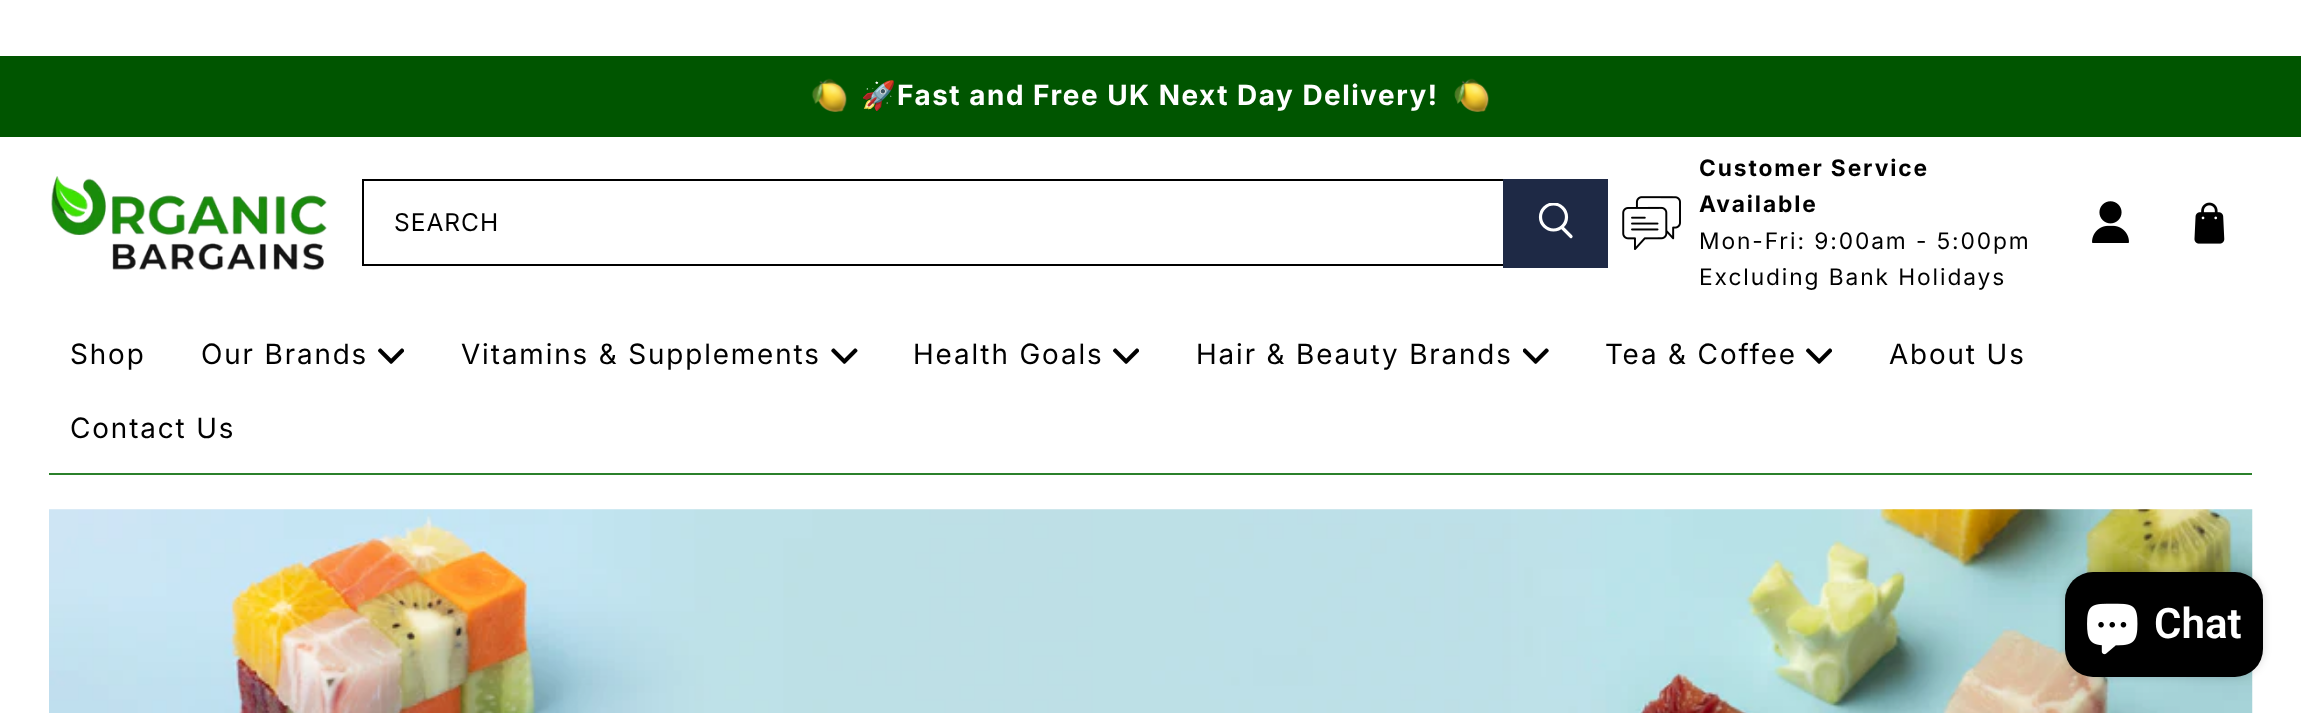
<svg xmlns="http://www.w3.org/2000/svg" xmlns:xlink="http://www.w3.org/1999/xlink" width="2301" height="713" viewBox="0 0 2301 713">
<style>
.cls-1{font:bold 28px Noto Color Emoji;letter-spacing:1.55px;fill:#ffffff}
.cls-2{font:bold 28px 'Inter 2';letter-spacing:1.55px;fill:#ffffff}
.cls-3{font:24.5px Inter;letter-spacing:1px;fill:#000000}
.cls-4{font:bold 22.75px Inter;letter-spacing:1.9px;fill:#000000}
.cls-5{font:22.75px Inter;letter-spacing:1.9px;fill:#000000}
.cls-6{font:28px 'Inter 2';letter-spacing:1.9px;fill:#000000}
.cls-7{font:600 42px Roboto;fill:#ffffff}
</style>
<defs>
<clipPath id="clip1"><rect x="1537" y="203" width="38" height="39"/></clipPath>
</defs>
<rect width="100%" height="100%" fill="#ffffff"/>
<rect fill="#005500" x="0" y="56" width="2301" height="81"/>
<image xlink:href="image0.png" x="811" y="78" width="36" height="34"/>
<image xlink:href="image1.png" x="1454" y="78" width="35" height="34"/>
<image xlink:href="image2.png" x="51" y="176" width="276" height="95"/>
<rect fill="none" stroke="#000000" stroke-width="2" x="363" y="180" width="1243" height="85"/>
<rect fill="#1e2945" x="1503" y="179" width="105" height="89"/>
<path fill="none" stroke="#ffffff" stroke-width="3.2" stroke-linecap="round" d="M1571 236.5L1562 227.5"/>
<g clip-path="url(#clip1)">
<circle fill="none" stroke="#ffffff" stroke-width="3.2" cx="1553.5" cy="217" r="13"/>
</g>
<image xlink:href="image3.png" x="1622" y="196" width="59" height="54"/>
<image xlink:href="image4.png" x="2092" y="201" width="37" height="42"/>
<image xlink:href="image5.png" x="2194" y="202" width="31" height="42"/>
<image xlink:href="image6.png" x="378" y="348" width="26" height="16"/>
<image xlink:href="image7.png" x="831" y="348" width="27" height="16"/>
<image xlink:href="image6.png" x="1113" y="348" width="26" height="16"/>
<image xlink:href="image8.png" x="1523" y="348" width="26" height="16"/>
<image xlink:href="image6.png" x="1806" y="348" width="26" height="16"/>
<rect fill="#2b802b" x="49" y="473" width="2203" height="2"/>
<image xlink:href="image9.png" x="49" y="509" width="2204" height="204"/>
<rect fill="#000000" fill-opacity="0.15" filter="blur(4.5px)" x="2065" y="572" width="198" height="105" rx="28"/>
<rect fill="#000000" x="2065" y="572" width="198" height="105" rx="28"/>
<image xlink:href="image10.png" x="2087" y="603" width="51" height="52"/>
<text class="cls-1" x="861" y="105">🚀</text>
<text class="cls-2" x="897" y="105">Fast and Free UK Next Day Delivery!</text>
<text class="cls-3" x="394" y="231">SEARCH</text>
<text class="cls-4"><tspan x="1699" y="176">Customer Service</tspan><tspan x="1699" y="212">Available</tspan></text>
<text class="cls-5"><tspan x="1699" y="249">Mon-Fri: 9:00am - 5:00pm</tspan><tspan x="1699" y="285">Excluding Bank Holidays</tspan></text>
<text class="cls-6" x="70" y="364">Shop</text>
<text class="cls-6" x="201" y="364">Our Brands</text>
<text class="cls-6" x="461" y="364">Vitamins &amp; Supplements</text>
<text class="cls-6" x="913" y="364">Health Goals</text>
<text class="cls-6" x="1196" y="364">Hair &amp; Beauty Brands</text>
<text class="cls-6" x="1605" y="364">Tea &amp; Coffee</text>
<text class="cls-6" x="1889" y="364">About Us</text>
<text class="cls-6" x="70" y="438">Contact Us</text>
<text class="cls-7" x="2154" y="638">Chat</text>
</svg>
